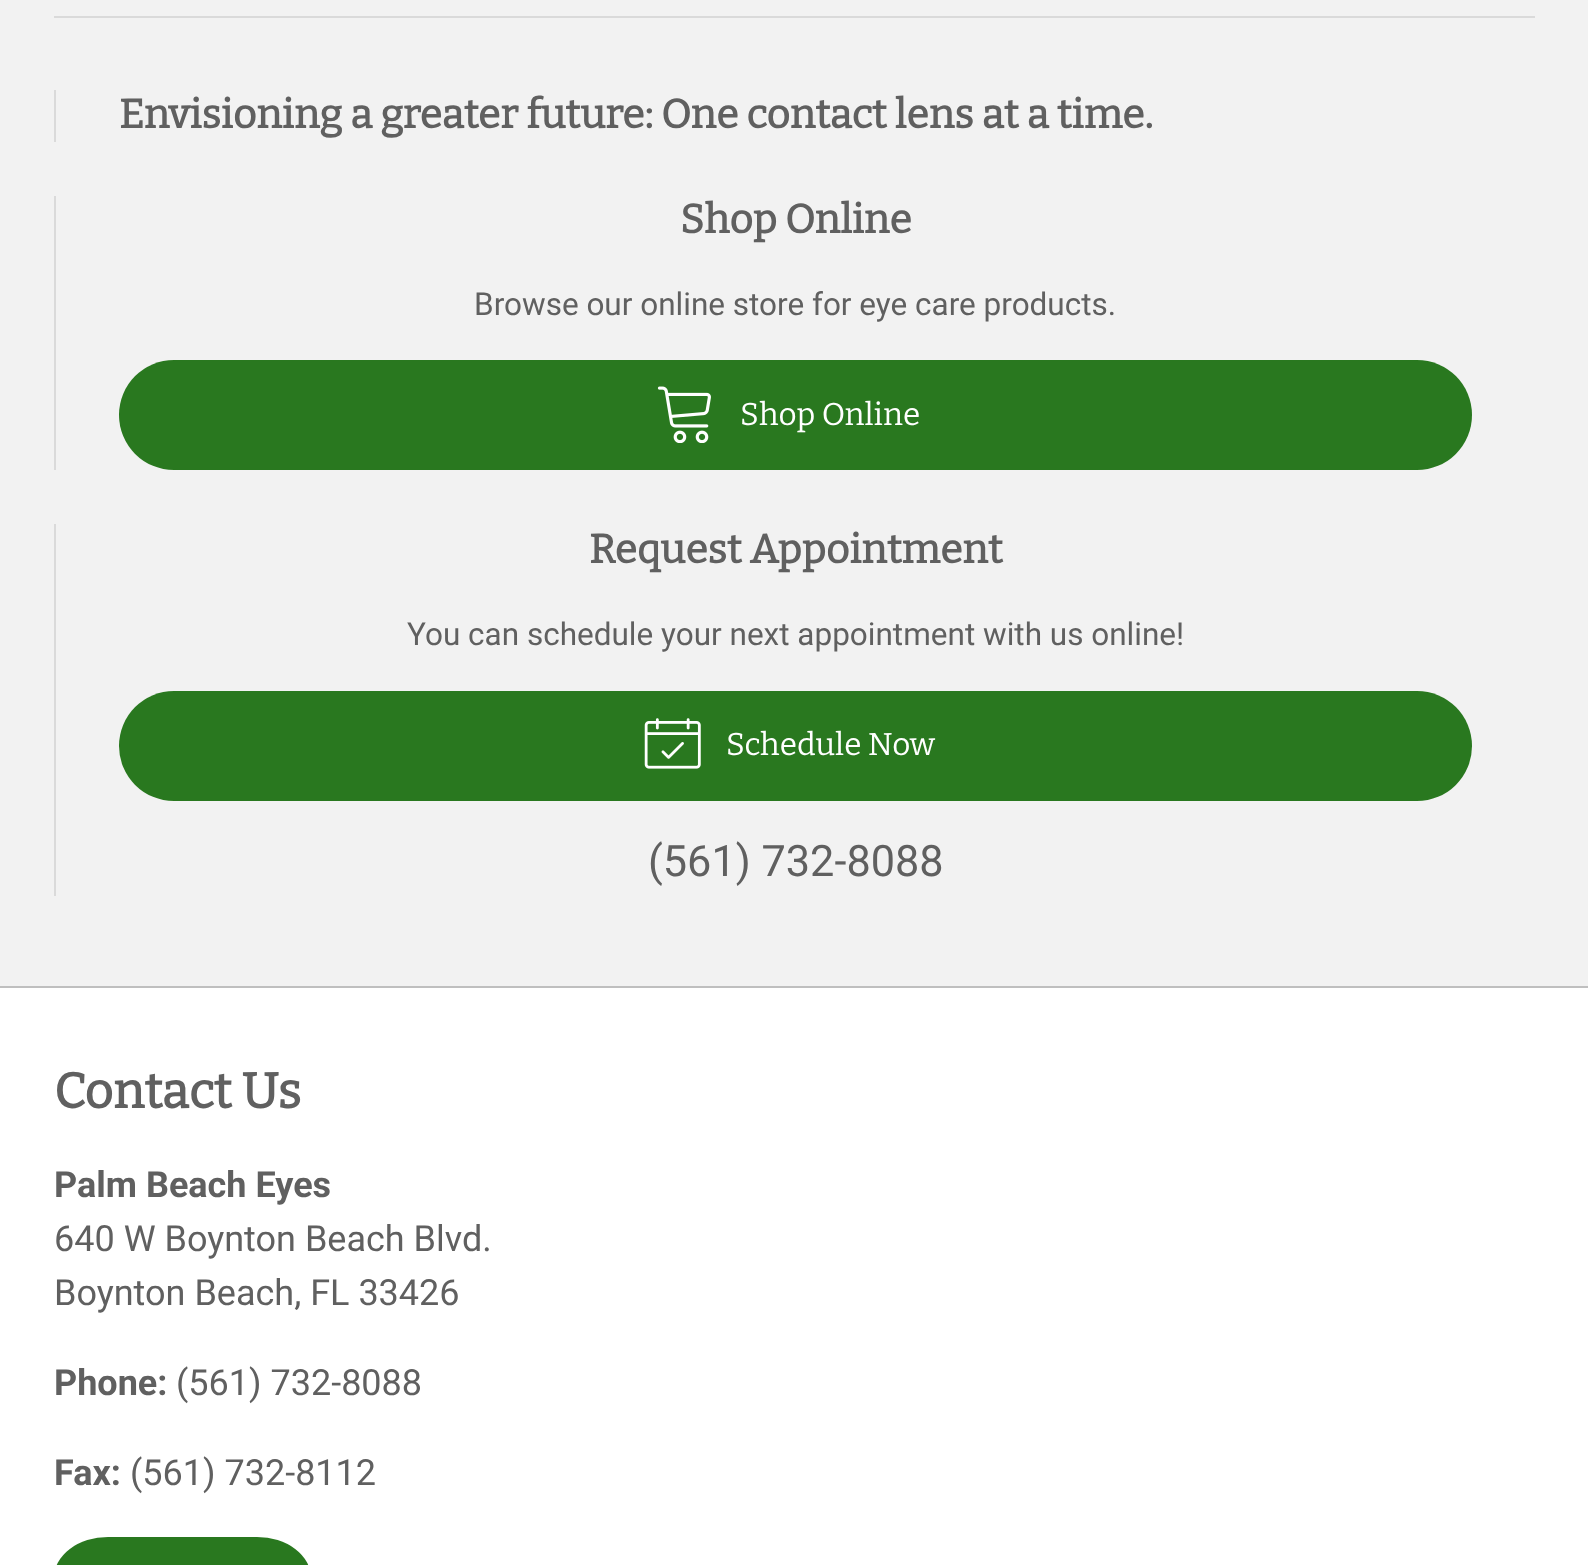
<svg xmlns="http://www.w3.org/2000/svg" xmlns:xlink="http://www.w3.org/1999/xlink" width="1588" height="1565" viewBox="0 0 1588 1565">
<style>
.cls-1{font:bold 40.5px Bitter;fill:#606060}
.cls-2{font:31.5px Roboto;fill:#606060}
.cls-3{font:100 31.5px Bitter;fill:#ffffff}
.cls-4{font:43.25px Roboto;fill:#606060}
.cls-5{font:bold 49.5px Bitter;fill:#606060}
.cls-6{font:bold 36px Roboto;fill:#606060}
.cls-7{font:36px Roboto;fill:#606060}
</style>
<rect width="100%" height="100%" fill="#ffffff"/>
<rect fill="#f2f2f2" x="0" y="0" width="1588" height="986"/>
<rect fill="#dadada" x="54" y="16" width="1481" height="2"/>
<rect fill="#dadada" x="54" y="90" width="2" height="52"/>
<rect fill="#dadada" x="54" y="196" width="2" height="274"/>
<rect fill="#29781f" x="119" y="360" width="1353" height="110" rx="55"/>
<image xlink:href="image0.png" x="657" y="386" width="54" height="57"/>
<rect fill="#dadada" x="54" y="524" width="2" height="372"/>
<rect fill="#29781f" x="119" y="691" width="1353" height="110" rx="55"/>
<image xlink:href="image1.png" x="644" y="718" width="57" height="51"/>
<rect fill="#bfbfbf" x="0" y="986" width="1588" height="2"/>
<rect fill="#29781f" x="54" y="1537" width="257" height="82" rx="54"/>
<text class="cls-1" x="119" y="128">Envisioning a greater future: One contact lens at a time.</text>
<text class="cls-1" x="680" y="233">Shop Online</text>
<text class="cls-2" x="474" y="315">Browse our online store for eye care products.</text>
<text class="cls-3" x="740" y="425">Shop Online</text>
<text class="cls-1" x="589" y="563">Request Appointment</text>
<text class="cls-2" x="407" y="645">You can schedule your next appointment with us online!</text>
<text class="cls-3" x="726" y="755">Schedule Now</text>
<text class="cls-4" x="648" y="876">(561) 732-8088</text>
<text class="cls-5" x="54" y="1108">Contact Us</text>
<text class="cls-6" x="54" y="1197">Palm Beach Eyes</text>
<text class="cls-7"><tspan x="54" y="1251">640 W Boynton Beach Blvd.</tspan><tspan x="54" y="1305">Boynton Beach, FL 33426</tspan></text>
<text class="cls-6" x="54" y="1395">Phone:</text>
<text class="cls-7" x="176" y="1395">(561) 732-8088</text>
<text class="cls-6" x="54" y="1485">Fax:</text>
<text class="cls-7" x="130" y="1485">(561) 732-8112</text>
</svg>
